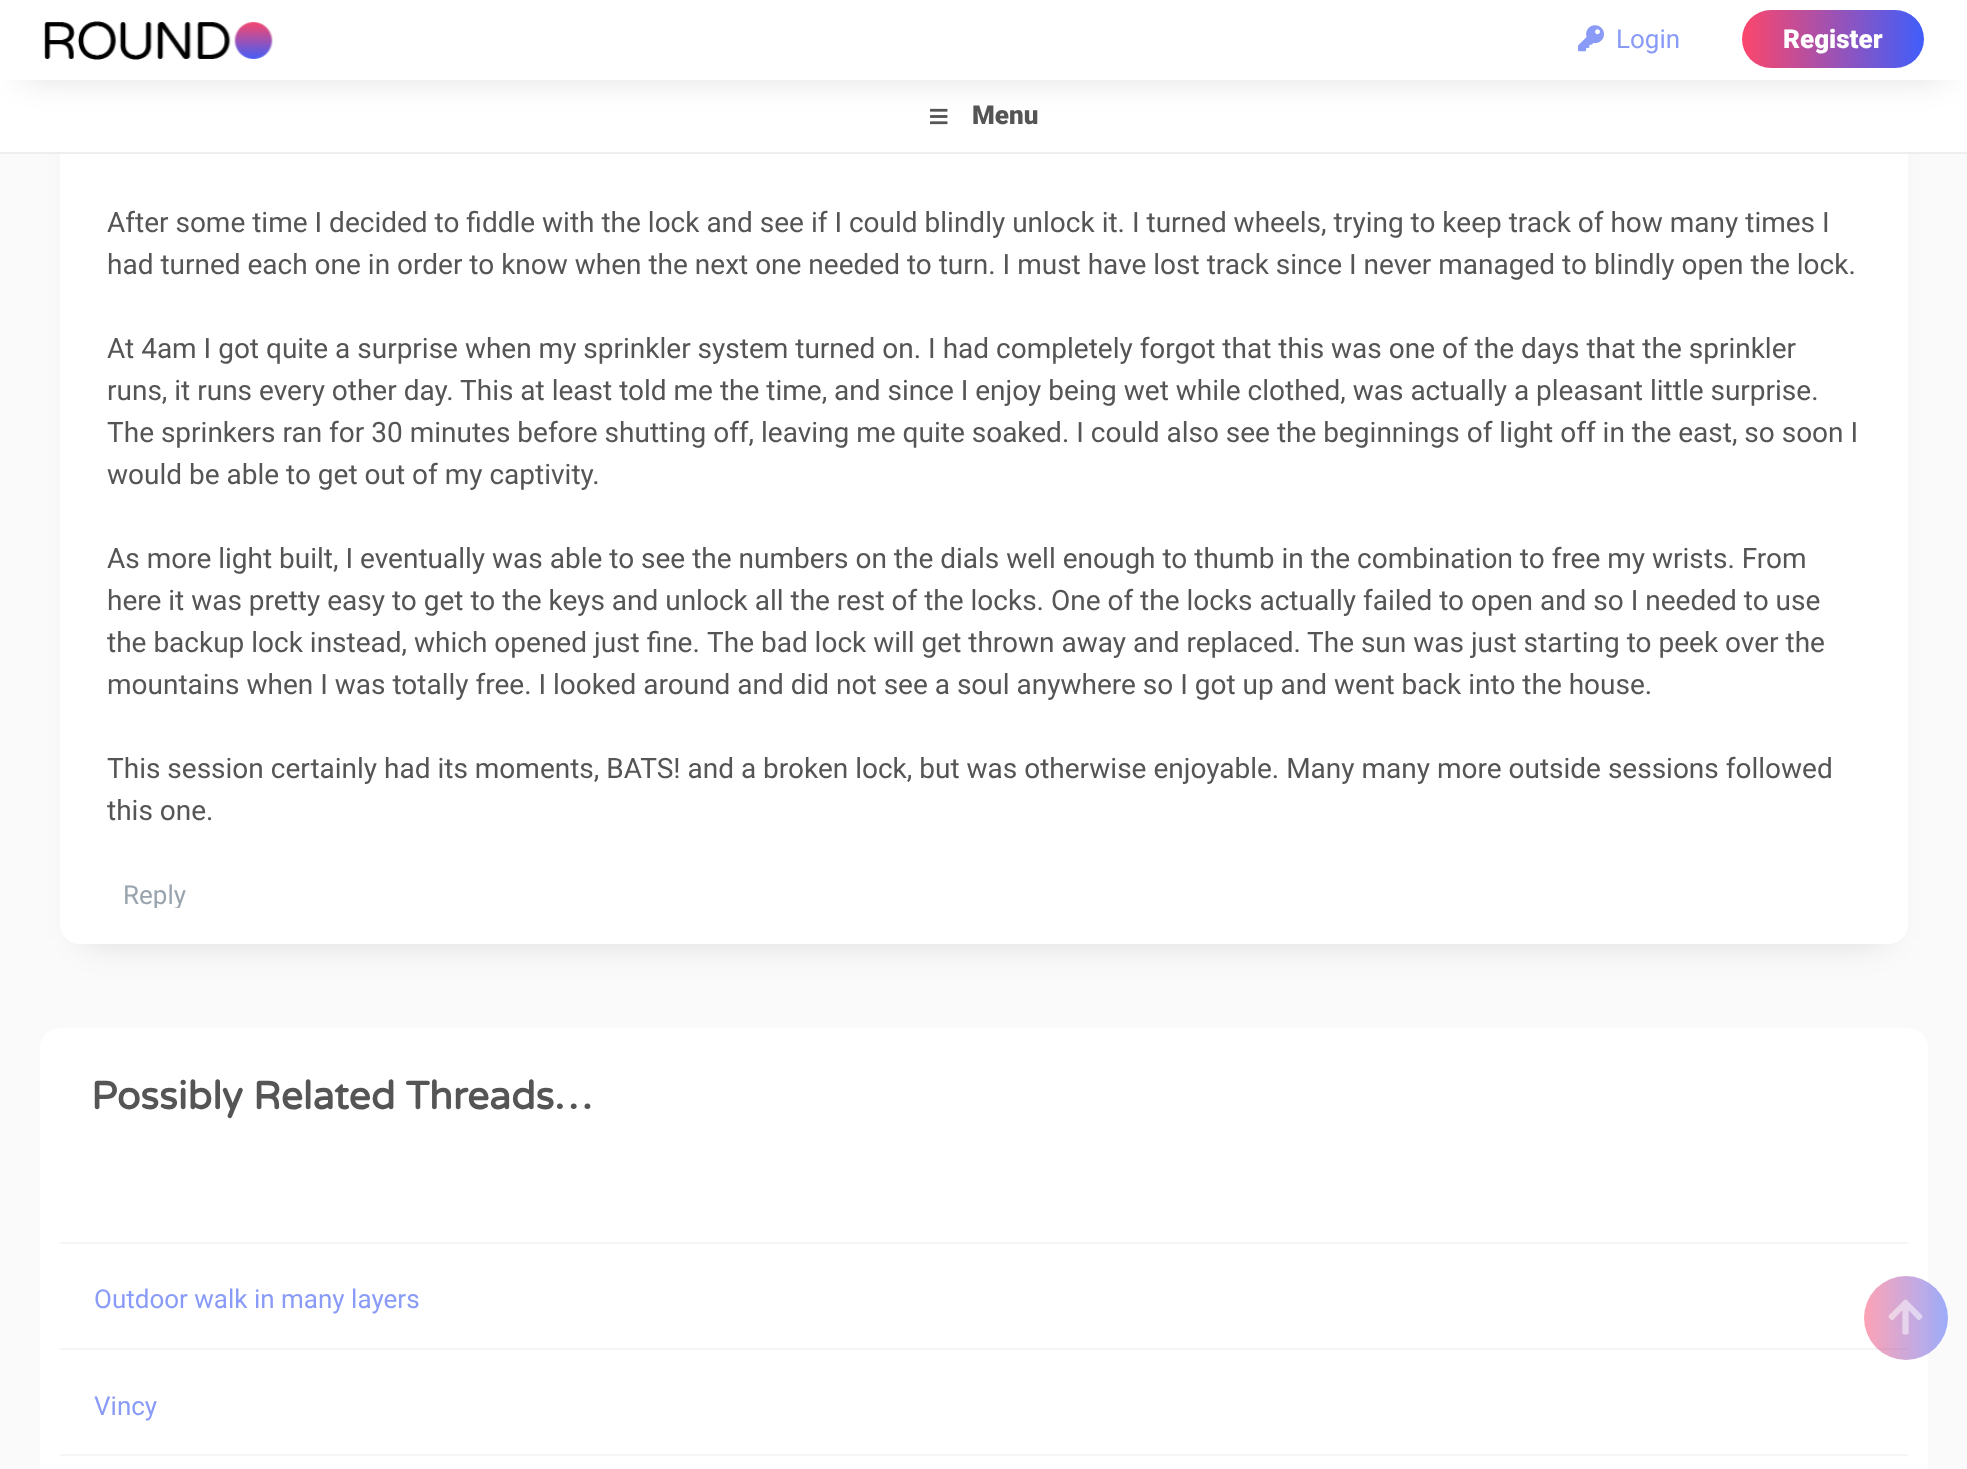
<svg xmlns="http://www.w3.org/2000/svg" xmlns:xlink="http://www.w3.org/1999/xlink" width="1967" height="1469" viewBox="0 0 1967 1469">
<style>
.cls-1{font:26px Roboto;fill:#899bf7}
.cls-2{font:900 26px Roboto;fill:#ffffff}
.cls-3{font:900 26px Roboto;fill:#555555}
.cls-4{font:28px Roboto;fill:#555555}
.cls-5{font:26px Roboto;fill:#9aa4ae}
.cls-6{font:bold 39px Varela Round;fill:#555555}
</style>
<defs>
<linearGradient id="g1" gradientUnits="userSpaceOnUse" x1="1742" y1="39" x2="1924" y2="39"><stop offset="0" stop-color="#fc466b"/><stop offset="1" stop-color="#3f5efb"/></linearGradient>
<linearGradient id="g2" gradientUnits="userSpaceOnUse" x1="1864" y1="1318" x2="1948" y2="1318"><stop offset="0" stop-color="#fc466b" stop-opacity="0.5"/><stop offset="1" stop-color="#3f5efb" stop-opacity="0.5"/></linearGradient>
<clipPath id="clip1"><rect x="96" y="876" width="118" height="32"/></clipPath>
</defs>
<rect width="100%" height="100%" fill="#fafafa"/>
<rect fill="#000000" fill-opacity="0.15" filter="blur(17px)" x="84" y="-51" width="1800" height="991"/>
<rect fill="#ffffff" x="60" y="-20" width="1848" height="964" rx="20"/>
<rect fill="#ffffff" x="0" y="80" width="1967" height="72"/>
<image xlink:href="image2.png" x="930" y="108" width="18" height="17"/>
<rect fill="#000000" fill-opacity="0.15" filter="blur(17px)" x="24" y="44" width="1920" height="32"/>
<rect fill="#ffffff" x="0" y="0" width="1967" height="80"/>
<image xlink:href="image0.png" x="44" y="21" width="229" height="39"/>
<image xlink:href="image1.png" x="1578" y="25" width="26" height="27"/>
<rect fill="url(#g1)" x="1742" y="10" width="182" height="58" rx="29"/>
<rect fill="#eeeeee" x="0" y="152" width="1967" height="2"/>
<rect fill="#ffffff" x="40" y="1028" width="1888" height="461" rx="20"/>
<rect fill="#f5f5f5" x="60" y="1242" width="1848" height="2"/>
<rect fill="#f5f5f5" x="60" y="1348" width="1848" height="2"/>
<rect fill="#f5f5f5" x="60" y="1454" width="1848" height="2"/>
<circle fill="url(#g2)" cx="1906" cy="1318" r="42"/>
<image xlink:href="image3.png" x="1888" y="1299" width="35" height="36"/>
<text class="cls-1" x="1616" y="48">Login</text>
<text class="cls-2" x="1783" y="48">Register</text>
<text class="cls-3" x="972" y="124">Menu</text>
<text class="cls-4"><tspan x="107" y="232">After some time I decided to fiddle with the lock and see if I could blindly unlock it. I turned wheels, trying to keep track of how many times I</tspan><tspan x="107" y="274">had turned each one in order to know when the next one needed to turn. I must have lost track since I never managed to blindly open the lock.</tspan></text>
<text class="cls-4"><tspan x="107" y="358">At 4am I got quite a surprise when my sprinkler system turned on. I had completely forgot that this was one of the days that the sprinkler</tspan><tspan x="107" y="400">runs, it runs every other day. This at least told me the time, and since I enjoy being wet while clothed, was actually a pleasant little surprise.</tspan><tspan x="107" y="442">The sprinkers ran for 30 minutes before shutting off, leaving me quite soaked. I could also see the beginnings of light off in the east, so soon I</tspan><tspan x="107" y="484">would be able to get out of my captivity.</tspan></text>
<text class="cls-4"><tspan x="107" y="568">As more light built, I eventually was able to see the numbers on the dials well enough to thumb in the combination to free my wrists. From</tspan><tspan x="107" y="610">here it was pretty easy to get to the keys and unlock all the rest of the locks. One of the locks actually failed to open and so I needed to use</tspan><tspan x="107" y="652">the backup lock instead, which opened just fine.</tspan></text>
<text class="cls-4" x="707" y="652">The bad lock will get thrown away and replaced.</text>
<text class="cls-4" x="1307" y="652">The sun was just starting to peek over the</text>
<text class="cls-4" x="107" y="694">mountains when I was totally free. I looked around and did not see a soul anywhere so I got up and went back into the house.</text>
<text class="cls-4"><tspan x="107" y="778">This session certainly had its moments, BATS! and a broken lock, but was otherwise enjoyable. Many many more outside sessions followed</tspan><tspan x="107" y="820">this one.</tspan></text>
<g clip-path="url(#clip1)">
<text class="cls-5" x="123" y="904">Reply</text>
</g>
<text class="cls-6" x="91" y="1109">Possibly Related Threads…</text>
<text class="cls-1" x="94" y="1308">Outdoor walk in many layers</text>
<text class="cls-1" x="94" y="1415">Vincy</text>
</svg>
